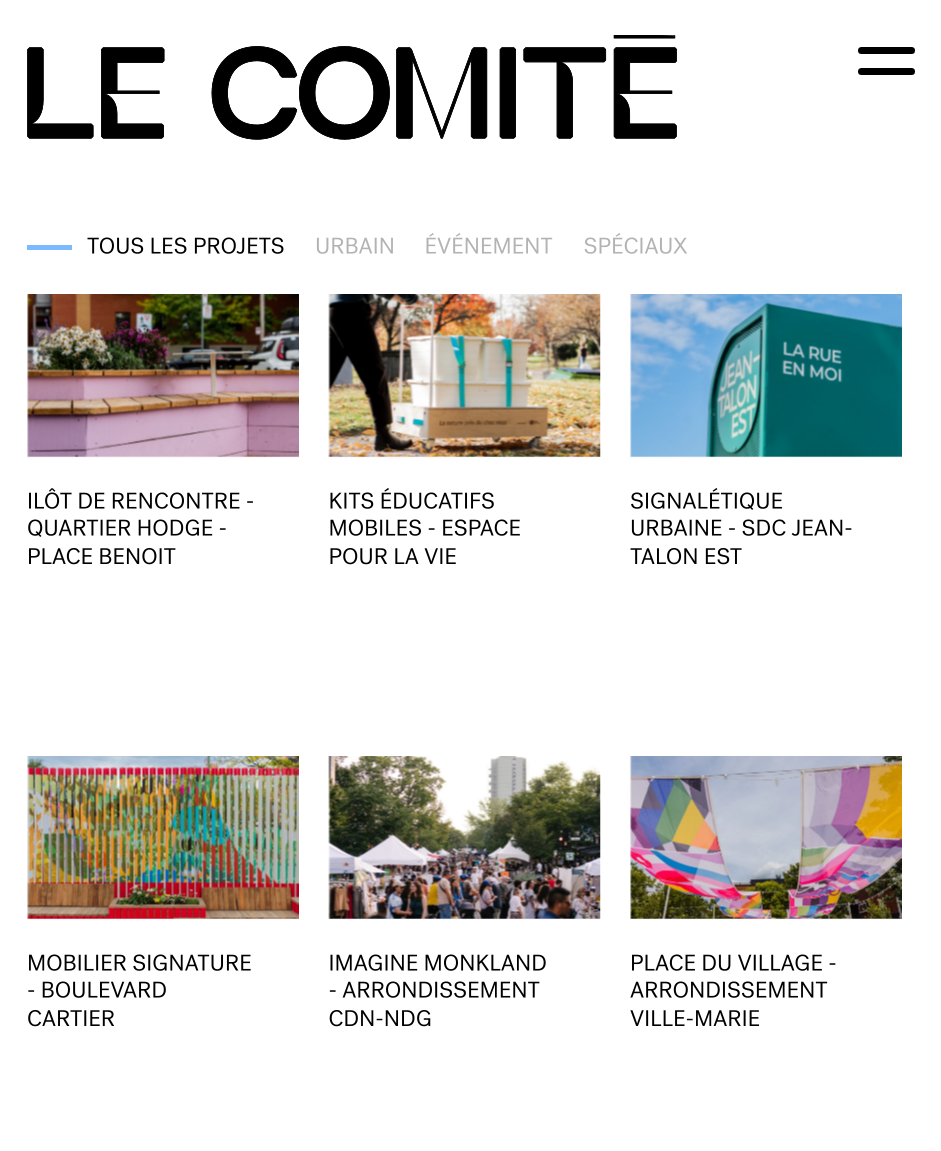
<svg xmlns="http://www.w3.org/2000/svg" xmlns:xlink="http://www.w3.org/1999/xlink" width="941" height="1151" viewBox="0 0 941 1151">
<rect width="100%" height="100%" fill="#ffffff"/>
<image xlink:href="image0.png" x="27" y="35" width="650" height="105"/>
<rect fill="#000000" x="858" y="47" width="57" height="7" rx="3.5"/>
<rect fill="#000000" x="858" y="68" width="57" height="7" rx="3.5"/>
<rect fill="#7cb9ff" x="27" y="245" width="45" height="5"/>
<image xlink:href="image1.png" x="87" y="237" width="197" height="17"/>
<image xlink:href="image2.png" x="316" y="237" width="77" height="17"/>
<image xlink:href="image3.png" x="426" y="233" width="127" height="21"/>
<image xlink:href="image4.png" x="584" y="233" width="103" height="21"/>
<rect fill="#f9f9f9" x="27" y="294" width="272" height="164"/>
<image xlink:href="image5.png" x="27" y="294" width="272" height="163"/>
<image xlink:href="image6.png" x="29" y="488" width="224" height="21"/>
<image xlink:href="image7.png" x="28" y="519" width="198" height="18"/>
<image xlink:href="image8.png" x="29" y="548" width="147" height="17"/>
<rect fill="#f9f9f9" x="329" y="294" width="271" height="164"/>
<image xlink:href="image9.png" x="328" y="294" width="273" height="163"/>
<image xlink:href="image10.png" x="330" y="488" width="164" height="21"/>
<image xlink:href="image11.png" x="330" y="519" width="190" height="17"/>
<image xlink:href="image12.png" x="330" y="548" width="126" height="17"/>
<rect fill="#f9f9f9" x="630" y="294" width="272" height="164"/>
<image xlink:href="image13.png" x="630" y="294" width="272" height="163"/>
<image xlink:href="image14.png" x="631" y="488" width="151" height="22"/>
<image xlink:href="image15.png" x="631" y="519" width="221" height="17"/>
<image xlink:href="image16.png" x="630" y="548" width="112" height="17"/>
<rect fill="#f9f9f9" x="27" y="756" width="272" height="164"/>
<image xlink:href="image17.png" x="27" y="756" width="272" height="163"/>
<image xlink:href="image18.png" x="29" y="954" width="222" height="17"/>
<image xlink:href="image19.png" x="28" y="981" width="138" height="17"/>
<image xlink:href="image20.png" x="28" y="1010" width="87" height="17"/>
<rect fill="#f9f9f9" x="329" y="756" width="271" height="164"/>
<image xlink:href="image21.png" x="328" y="756" width="273" height="163"/>
<image xlink:href="image22.png" x="330" y="954" width="216" height="17"/>
<image xlink:href="image23.png" x="329" y="981" width="211" height="17"/>
<image xlink:href="image24.png" x="329" y="1010" width="102" height="17"/>
<rect fill="#f9f9f9" x="630" y="756" width="272" height="164"/>
<image xlink:href="image25.png" x="630" y="756" width="272" height="163"/>
<image xlink:href="image26.png" x="632" y="954" width="204" height="17"/>
<image xlink:href="image27.png" x="630" y="981" width="198" height="17"/>
<image xlink:href="image28.png" x="630" y="1010" width="130" height="16"/>
</svg>
